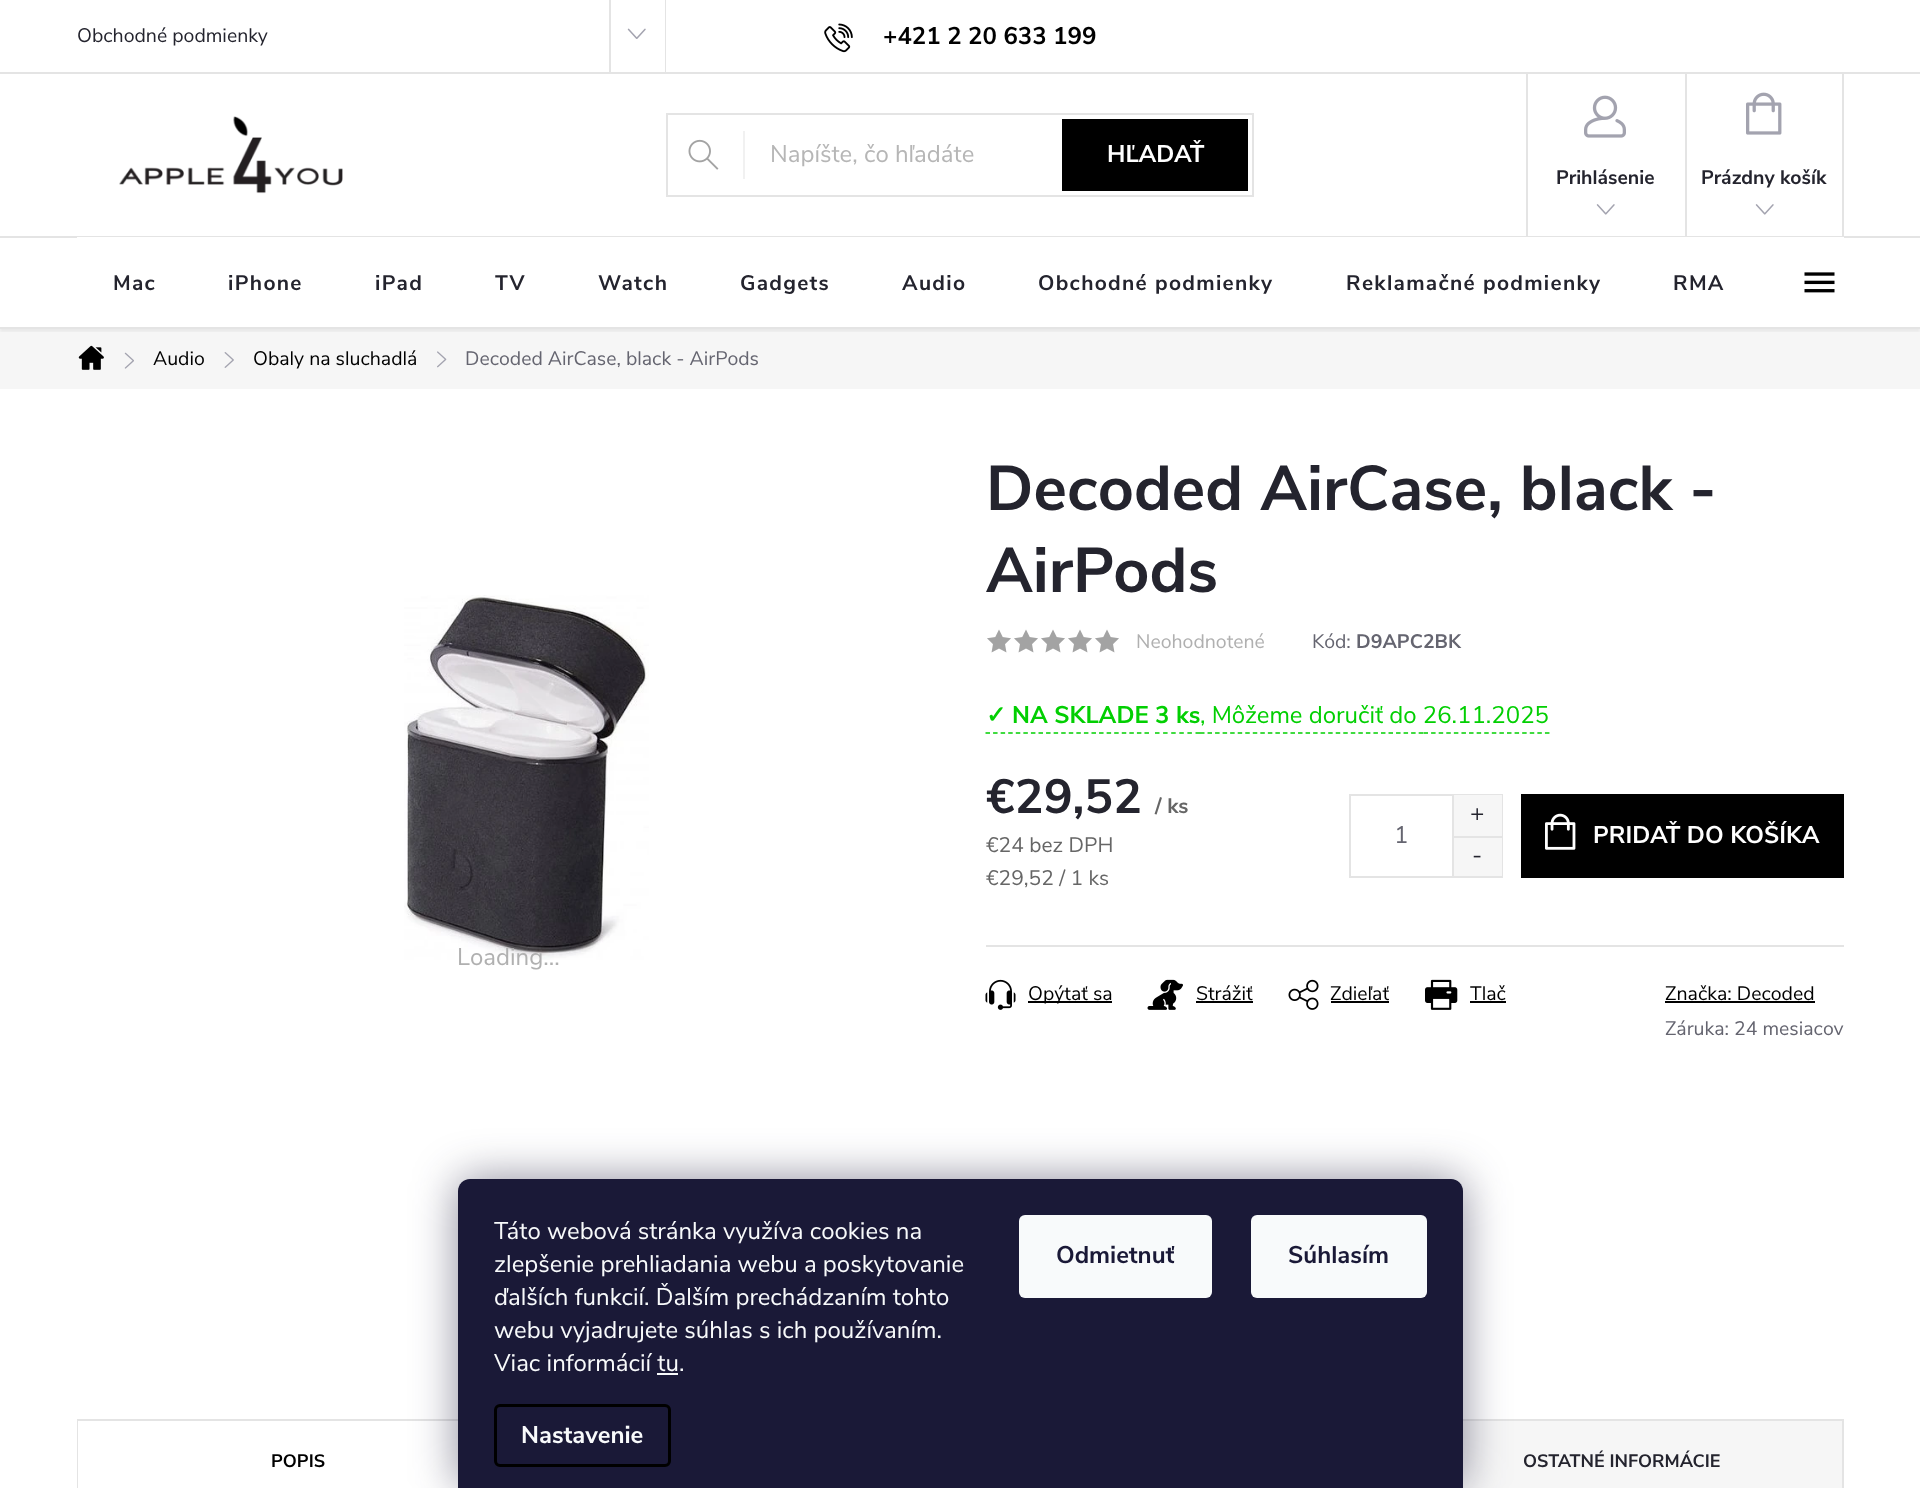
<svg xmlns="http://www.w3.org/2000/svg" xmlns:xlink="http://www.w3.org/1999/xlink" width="1920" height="1488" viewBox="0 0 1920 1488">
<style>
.cls-1{font:19.5px Nunito Sans;fill:#24242e}
.cls-2{font:bold 24px Nunito Sans;fill:#000000}
.cls-3{font:24px Nunito Sans;fill:#b6b6b6}
.cls-4{font:bold 24px Nunito Sans;fill:#ffffff}
.cls-5{font:bold 19.5px Nunito Sans;fill:#24242e}
.cls-6{font:bold 21px Nunito Sans;letter-spacing:1.3px;fill:#24242e}
.cls-7{font:19.5px Nunito Sans;fill:#000000}
.cls-8{font:19.5px Nunito Sans;fill:#656570}
.cls-9{font:24px Nunito Sans;fill:#b0b0b0}
.cls-10{font:bold 63px Nunito Sans;fill:#24242e}
.cls-11{font:19.5px Nunito Sans;fill:#b0b0b0}
.cls-12{font:bold 19.5px Nunito Sans;fill:#656570}
.cls-13{font:bold 24px DejaVu Sans;fill:#02cf02}
.cls-14{font:bold 24px Nunito Sans;fill:#02cf02}
.cls-15{font:24px Nunito Sans;fill:#02cf02}
.cls-16{font:bold 48px Nunito Sans;fill:#24242e}
.cls-17{font:bold 21px Nunito Sans;fill:#666666}
.cls-18{font:21px Nunito Sans;fill:#666666}
.cls-19{font:24px Nunito Sans;fill:#24242e}
.cls-20{font:24px Nunito Sans;fill:#656570}
.cls-21{font:bold 18px Nunito Sans;fill:#000000}
.cls-22{font:bold 18px Nunito Sans;fill:#24242e}
.cls-23{font:24px Nunito Sans;fill:#f8fafb}
.cls-24{font:bold 24px Nunito Sans;fill:#f8fafb}
.cls-25{font:bold 24px Nunito Sans;fill:#1a1937}
</style>
<defs>
<clipPath id="clip1"><rect x="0" y="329" width="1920" height="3"/></clipPath>
</defs>
<rect width="100%" height="100%" fill="#ffffff"/>
<rect fill="#e4e4e4" x="0" y="72" width="1920" height="2"/>
<rect fill="#e4e4e4" x="665" y="0" width="1" height="72"/>
<rect fill="#e4e4e4" x="609" y="0" width="2" height="72"/>
<image xlink:href="image0.png" x="627" y="28" width="19" height="11"/>
<image xlink:href="image1.png" x="824" y="23" width="29" height="30"/>
<image xlink:href="image2.png" x="119" y="116" width="224" height="78"/>
<rect fill="none" stroke="#e4e4e4" stroke-width="2" x="667" y="114" width="586" height="82"/>
<rect fill="#f1f1f1" x="743" y="131" width="2" height="48"/>
<image xlink:href="image3.png" x="688" y="139" width="31" height="31"/>
<rect fill="#000000" x="1062" y="119" width="186" height="72"/>
<rect fill="#e4e4e4" x="1526" y="74" width="2" height="162"/>
<image xlink:href="image4.png" x="1584" y="95" width="42" height="43"/>
<image xlink:href="image5.png" x="1596" y="204" width="19" height="11"/>
<rect fill="#e4e4e4" x="1842" y="74" width="2" height="162"/>
<rect fill="#e4e4e4" x="1685" y="74" width="2" height="162"/>
<image xlink:href="image6.png" x="1746" y="92" width="36" height="43"/>
<image xlink:href="image5.png" x="1755" y="204" width="19" height="11"/>
<rect fill="#f6f6f6" x="0" y="329" width="1920" height="60"/>
<g clip-path="url(#clip1)">
<rect fill="#000000" fill-opacity="0.05" filter="blur(1.5px)" x="0" y="239" width="1920" height="93"/>
</g>
<rect fill="#e4e4e4" x="0" y="236" width="1920" height="2"/>
<rect fill="#ffffff" x="77" y="237" width="1767" height="1"/>
<image xlink:href="image7.png" x="1804" y="272" width="31" height="21"/>
<rect fill="#e4e4e4" x="0" y="327" width="1920" height="2"/>
<image xlink:href="image8.png" x="78" y="345" width="26" height="25"/>
<image xlink:href="image9.png" x="124" y="352" width="10" height="17"/>
<image xlink:href="image10.png" x="224" y="352" width="10" height="16"/>
<image xlink:href="image11.png" x="437" y="351" width="10" height="17"/>
<image xlink:href="image12.png" x="404" y="595" width="245" height="365"/>
<image xlink:href="image13.png" x="987" y="629" width="24" height="24"/>
<image xlink:href="image13.png" x="1014" y="629" width="24" height="24"/>
<image xlink:href="image13.png" x="1041" y="629" width="24" height="24"/>
<image xlink:href="image13.png" x="1068" y="629" width="24" height="24"/>
<image xlink:href="image13.png" x="1095" y="629" width="24" height="24"/>
<path fill="none" stroke="#02cf02" stroke-width="1.5" stroke-dasharray="4.5 3.07" d="M985.5 733H1149"/>
<path fill="none" stroke="#02cf02" stroke-width="1.5" stroke-dasharray="4.5 3.04" d="M1200 733H1423.5"/>
<path fill="none" stroke="#02cf02" stroke-width="1.5" stroke-dasharray="4.5 3.09" d="M1423.5 733H1549.5"/>
<path fill="none" stroke="#02cf02" stroke-width="1.5" stroke-dasharray="4.5 3.6" d="M1155 733H1200"/>
<rect fill="none" stroke="#e4e4e4" stroke-width="2" x="1350" y="795" width="152" height="82"/>
<rect fill="#f6f6f6" x="1454" y="795" width="48" height="41"/>
<rect fill="#e4e4e4" x="1452" y="795" width="2" height="41"/>
<rect fill="#f6f6f6" x="1454" y="838" width="48" height="38"/>
<rect fill="#e4e4e4" x="1452" y="836" width="50" height="2"/>
<rect fill="#e4e4e4" x="1452" y="836" width="2" height="40"/>
<rect fill="#000000" x="1521" y="794" width="323" height="84"/>
<image xlink:href="image14.png" x="1545" y="813" width="31" height="37"/>
<rect fill="#e4e4e4" x="986" y="945" width="858" height="2"/>
<image xlink:href="image15.png" x="985" y="979" width="31" height="31"/>
<rect fill="#000000" x="1028" y="1001" width="84" height="2"/>
<image xlink:href="image16.png" x="1147" y="979" width="36" height="31"/>
<rect fill="#000000" x="1196" y="1001" width="57" height="2"/>
<image xlink:href="image17.png" x="1288" y="979" width="31" height="31"/>
<rect fill="#000000" x="1331" y="1001" width="58" height="2"/>
<image xlink:href="image18.png" x="1425" y="979" width="33" height="31"/>
<rect fill="#000000" x="1470" y="1001" width="36" height="2"/>
<rect fill="#000000" x="1665" y="1001" width="150" height="2"/>
<rect fill="#f6f6f6" x="1463" y="1421" width="379" height="67"/>
<rect fill="#e4e4e4" x="77" y="1419" width="1767" height="2"/>
<rect fill="#e4e4e4" x="77" y="1419" width="2" height="69"/>
<rect fill="#ffffff" x="78" y="1421" width="1" height="67"/>
<rect fill="#e4e4e4" x="1842" y="1421" width="2" height="67"/>
<rect fill="#1b1939" fill-opacity="0.5" filter="blur(22.5px)" x="458" y="1179" width="1005" height="309" rx="12"/>
<path fill="#1a1937" d="M470 1179H1451C1457.5 1179 1463 1184.5 1463 1191V1488H458V1191C458 1184.5 463.5 1179 470 1179Z"/>
<rect fill="#f8fafb" x="657" y="1373" width="21" height="2"/>
<rect fill="none" stroke="#000000" stroke-width="3" x="495.5" y="1405.5" width="174" height="60" rx="4.5"/>
<rect fill="#f8fafb" x="1019" y="1215" width="193" height="83" rx="6"/>
<rect fill="#f8fafb" x="1251" y="1215" width="176" height="83" rx="6"/>
<text class="cls-1" x="77" y="42">Obchodné podmienky</text>
<text class="cls-2" x="883" y="44">+421 2 20 633 199</text>
<text class="cls-3" x="770" y="162">Napíšte, čo hľadáte</text>
<text class="cls-4" x="1107" y="162">HĽADAŤ</text>
<text class="cls-5" x="1556" y="184">Prihlásenie</text>
<text class="cls-5" x="1701" y="184">Prázdny košík</text>
<text class="cls-6" x="113" y="290">Mac</text>
<text class="cls-6" x="228" y="290">iPhone</text>
<text class="cls-6" x="375" y="290">iPad</text>
<text class="cls-6" x="495" y="290">TV</text>
<text class="cls-6" x="598" y="290">Watch</text>
<text class="cls-6" x="740" y="290">Gadgets</text>
<text class="cls-6" x="902" y="290">Audio</text>
<text class="cls-6" x="1038" y="290">Obchodné podmienky</text>
<text class="cls-6" x="1346" y="290">Reklamačné podmienky</text>
<text class="cls-6" x="1673" y="290">RMA</text>
<text class="cls-7" x="153" y="365">Audio</text>
<text class="cls-7" x="253" y="365">Obaly na sluchadlá</text>
<text class="cls-8" x="465" y="365">Decoded AirCase, black - AirPods</text>
<text class="cls-9" x="457" y="965">Loading...</text>
<text class="cls-10"><tspan x="986" y="510">Decoded AirCase, black -</tspan><tspan x="986" y="592">AirPods</tspan></text>
<text class="cls-11" x="1136" y="648">Neohodnotené</text>
<text class="cls-8" x="1312" y="648">Kód:</text>
<text class="cls-12" x="1356" y="648">D9APC2BK</text>
<text class="cls-13" x="986" y="723">✓</text>
<text class="cls-14" x="1012" y="723">NA SKLADE 3 ks</text>
<text class="cls-15" x="1200" y="723">, Môžeme doručiť do 26.11.2025</text>
<text class="cls-16" x="986" y="813">€29,52</text>
<text class="cls-17" x="1155" y="813">/ ks</text>
<text class="cls-18"><tspan x="986" y="852">€24 bez DPH</tspan><tspan x="986" y="885">€29,52 / 1 ks</tspan></text>
<text class="cls-19" x="1470" y="821">+</text>
<text class="cls-20" x="1394" y="843">1</text>
<text class="cls-19" x="1472" y="863">-</text>
<text class="cls-4" x="1593" y="843">PRIDAŤ DO KOŠÍKA</text>
<text class="cls-7" x="1028" y="1000">Opýtať sa</text>
<text class="cls-7" x="1196" y="1000">Strážiť</text>
<text class="cls-7" x="1330" y="1000">Zdieľať</text>
<text class="cls-7" x="1470" y="1000">Tlač</text>
<text class="cls-7" x="1665" y="1000">Značka: Decoded</text>
<text class="cls-8" x="1665" y="1035">Záruka:</text>
<text class="cls-8" x="1734" y="1035">24 mesiacov</text>
<text class="cls-21" x="271" y="1467">POPIS</text>
<text class="cls-22" x="1523" y="1467">OSTATNÉ INFORMÁCIE</text>
<text class="cls-23"><tspan x="494" y="1239">Táto webová stránka využíva cookies na</tspan><tspan x="494" y="1272">zlepšenie prehliadania webu a poskytovanie</tspan><tspan x="494" y="1305">ďalších funkcií. Ďalším prechádzaním tohto</tspan><tspan x="494" y="1338">webu vyjadrujete súhlas s ich používaním.</tspan><tspan x="494" y="1371">Viac informácií tu.</tspan></text>
<text class="cls-24" x="521" y="1443">Nastavenie</text>
<text class="cls-25" x="1056" y="1263">Odmietnuť</text>
<text class="cls-25" x="1288" y="1263">Súhlasím</text>
</svg>
